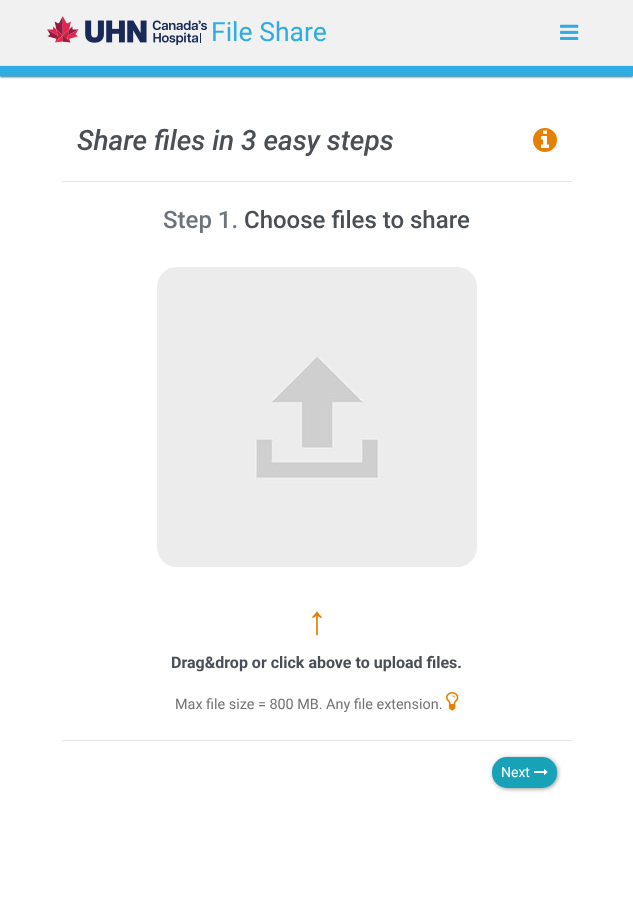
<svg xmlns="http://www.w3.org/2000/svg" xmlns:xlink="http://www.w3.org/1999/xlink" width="633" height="903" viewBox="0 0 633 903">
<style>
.cls-1{font:26.5px Roboto;fill:#2face1}
.cls-2{font:italic 500 28px Roboto;fill:#494f54}
.cls-3{font:500 24px Roboto;fill:#6c757d}
.cls-4{font:500 24px Roboto;fill:#494f54}
.cls-5{font:40px Liberation Sans;fill:#e68003}
.cls-6{font:bold 16px Roboto;fill:#494f54}
.cls-7{font:14.4px Roboto;fill:#737373}
.cls-8{font:14px Roboto;fill:#ffffff}
</style>
<rect width="100%" height="100%" fill="#ffffff"/>
<rect fill="#f1f1f1" x="0" y="0" width="633" height="66"/>
<image xlink:href="image0.png" x="47" y="16" width="160" height="29"/>
<image xlink:href="image1.png" x="560" y="24" width="19" height="16"/>
<rect fill="#156f95" filter="blur(1px)" x="0" y="67" width="633" height="10"/>
<rect fill="#2face1" x="0" y="66" width="633" height="10"/>
<image xlink:href="image2.png" x="533" y="128" width="24" height="24"/>
<rect fill="#e6e6e6" x="62" y="181" width="510" height="1"/>
<rect fill="#ececec" x="157" y="267" width="320" height="300" rx="20"/>
<image xlink:href="image3.png" x="167" y="268" width="300" height="299"/>
<image xlink:href="image4.png" x="446" y="692" width="13" height="19"/>
<rect fill="#e6e6e6" x="62" y="740" width="510" height="1"/>
<rect fill="#000000" fill-opacity="0.4" filter="blur(2px)" x="493" y="758" width="65" height="31" rx="15"/>
<rect fill="#17a2b8" x="492" y="757" width="65" height="31" rx="15"/>
<image xlink:href="image5.png" x="534" y="769" width="14" height="6"/>
<text class="cls-1" x="211" y="41">File Share</text>
<text class="cls-2" x="77" y="150">Share files in 3 easy steps</text>
<text class="cls-3" x="163" y="228">Step 1.</text>
<text class="cls-4" x="244" y="228">Choose files to share</text>
<text class="cls-5" x="307" y="634">↑</text>
<text class="cls-6" x="171" y="668">Drag&amp;drop or click above to upload files.</text>
<text class="cls-7" x="175" y="709">Max file size = 800 MB. Any file extension.</text>
<text class="cls-8" x="501" y="777">Next</text>
</svg>
